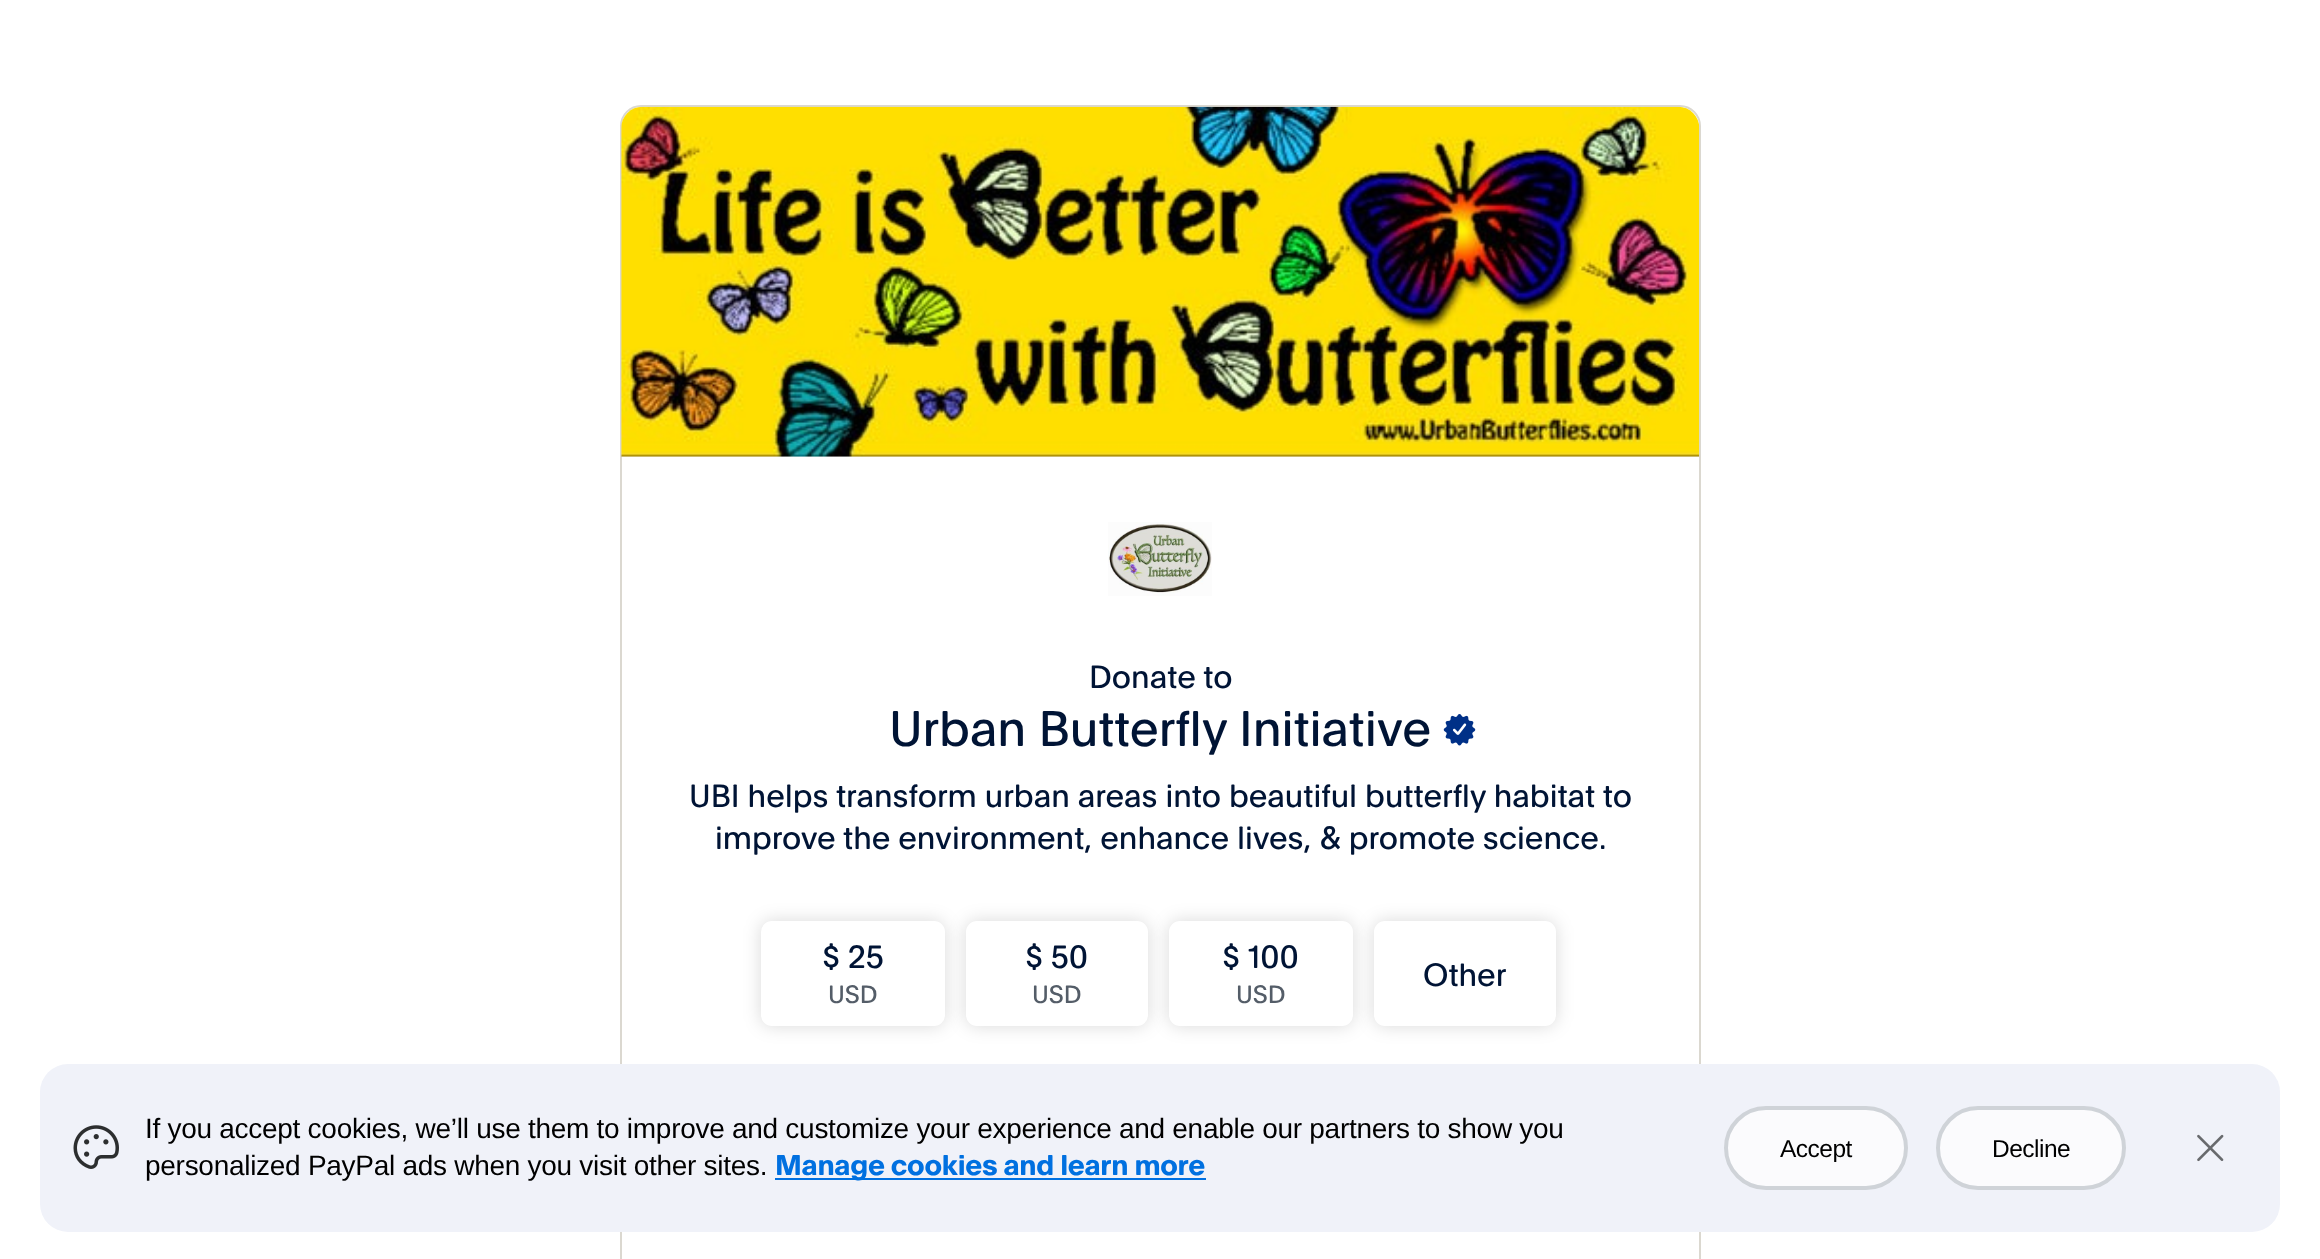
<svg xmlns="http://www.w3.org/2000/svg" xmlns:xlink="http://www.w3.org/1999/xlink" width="2320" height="1259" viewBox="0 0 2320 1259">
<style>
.cls-1{font:31.5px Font;fill:#001435}
.cls-2{font:49px Font;fill:#001435}
.cls-3{font:24.5px Font;fill:#545d68}
.cls-4{font:28px Liberation Sans;letter-spacing:-0.28px;fill:#000000}
.cls-5{font:bold 28px Font;letter-spacing:-0.28px;fill:#0070e0}
.cls-6{font:24.5px Liberation Sans;letter-spacing:-0.5px;fill:#000000}
</style>
<rect width="100%" height="100%" fill="#ffffff"/>
<rect fill="none" stroke="#dbd8d0" stroke-width="2" x="621" y="106" width="1079" height="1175" rx="20"/>
<image xlink:href="image0.png" x="621" y="106" width="1079" height="351"/>
<image xlink:href="image1.png" x="1108" y="522" width="104" height="74"/>
<image xlink:href="image2.png" x="1443" y="714" width="33" height="32"/>
<rect fill="#000000" fill-opacity="0.15" filter="blur(9px)" x="761" y="921" width="184" height="105" rx="11"/>
<rect fill="#ffffff" stroke="#ffffff" stroke-width="2" x="762" y="922" width="182" height="103" rx="10"/>
<rect fill="#000000" fill-opacity="0.15" filter="blur(9px)" x="966" y="921" width="182" height="105" rx="11"/>
<rect fill="#ffffff" stroke="#ffffff" stroke-width="2" x="967" y="922" width="180" height="103" rx="10"/>
<rect fill="#000000" fill-opacity="0.15" filter="blur(9px)" x="1169" y="921" width="184" height="105" rx="11"/>
<rect fill="#ffffff" stroke="#ffffff" stroke-width="2" x="1170" y="922" width="182" height="103" rx="10"/>
<rect fill="#000000" fill-opacity="0.15" filter="blur(9px)" x="1374" y="921" width="182" height="105" rx="11"/>
<rect fill="#ffffff" stroke="#ffffff" stroke-width="2" x="1375" y="922" width="180" height="103" rx="10"/>
<rect fill="#f0f2f9" x="40" y="1064" width="2240" height="168" rx="28"/>
<image xlink:href="image3.png" x="73" y="1125" width="46" height="44"/>
<rect fill="#0070e0" x="775" y="1178" width="431" height="2"/>
<rect fill="#fbfbfd" stroke="#cfd3d8" stroke-width="4" x="1726" y="1108" width="180" height="80" rx="40"/>
<rect fill="#fbfbfd" stroke="#cfd3d8" stroke-width="4" x="1938" y="1108" width="186" height="80" rx="40"/>
<image xlink:href="image4.png" x="2197" y="1134" width="27" height="28"/>
<text class="cls-1" x="1089" y="688">Donate to</text>
<text class="cls-2" x="889" y="746">Urban Butterfly Initiative</text>
<text class="cls-1" x="689" y="807">UBI helps transform urban areas into beautiful butterfly habitat to</text>
<text class="cls-1" x="715" y="849">improve the environment, enhance lives, &amp; promote science.</text>
<text class="cls-1" x="822" y="968">$ 25</text>
<text class="cls-3" x="828" y="1003">USD</text>
<text class="cls-1" x="1025" y="968">$ 50</text>
<text class="cls-3" x="1032" y="1003">USD</text>
<text class="cls-1" x="1222" y="968">$ 100</text>
<text class="cls-3" x="1236" y="1003">USD</text>
<text class="cls-1" x="1423" y="986">Other</text>
<text class="cls-4"><tspan x="145" y="1138">If you accept cookies, we’ll use them to improve and customize your experience and enable our partners to show you</tspan><tspan x="145" y="1175">personalized PayPal ads when you visit other sites.</tspan></text>
<text class="cls-5" x="775" y="1175">Manage cookies and learn more</text>
<text class="cls-6" x="1780" y="1157">Accept</text>
<text class="cls-6" x="1992" y="1157">Decline</text>
</svg>
